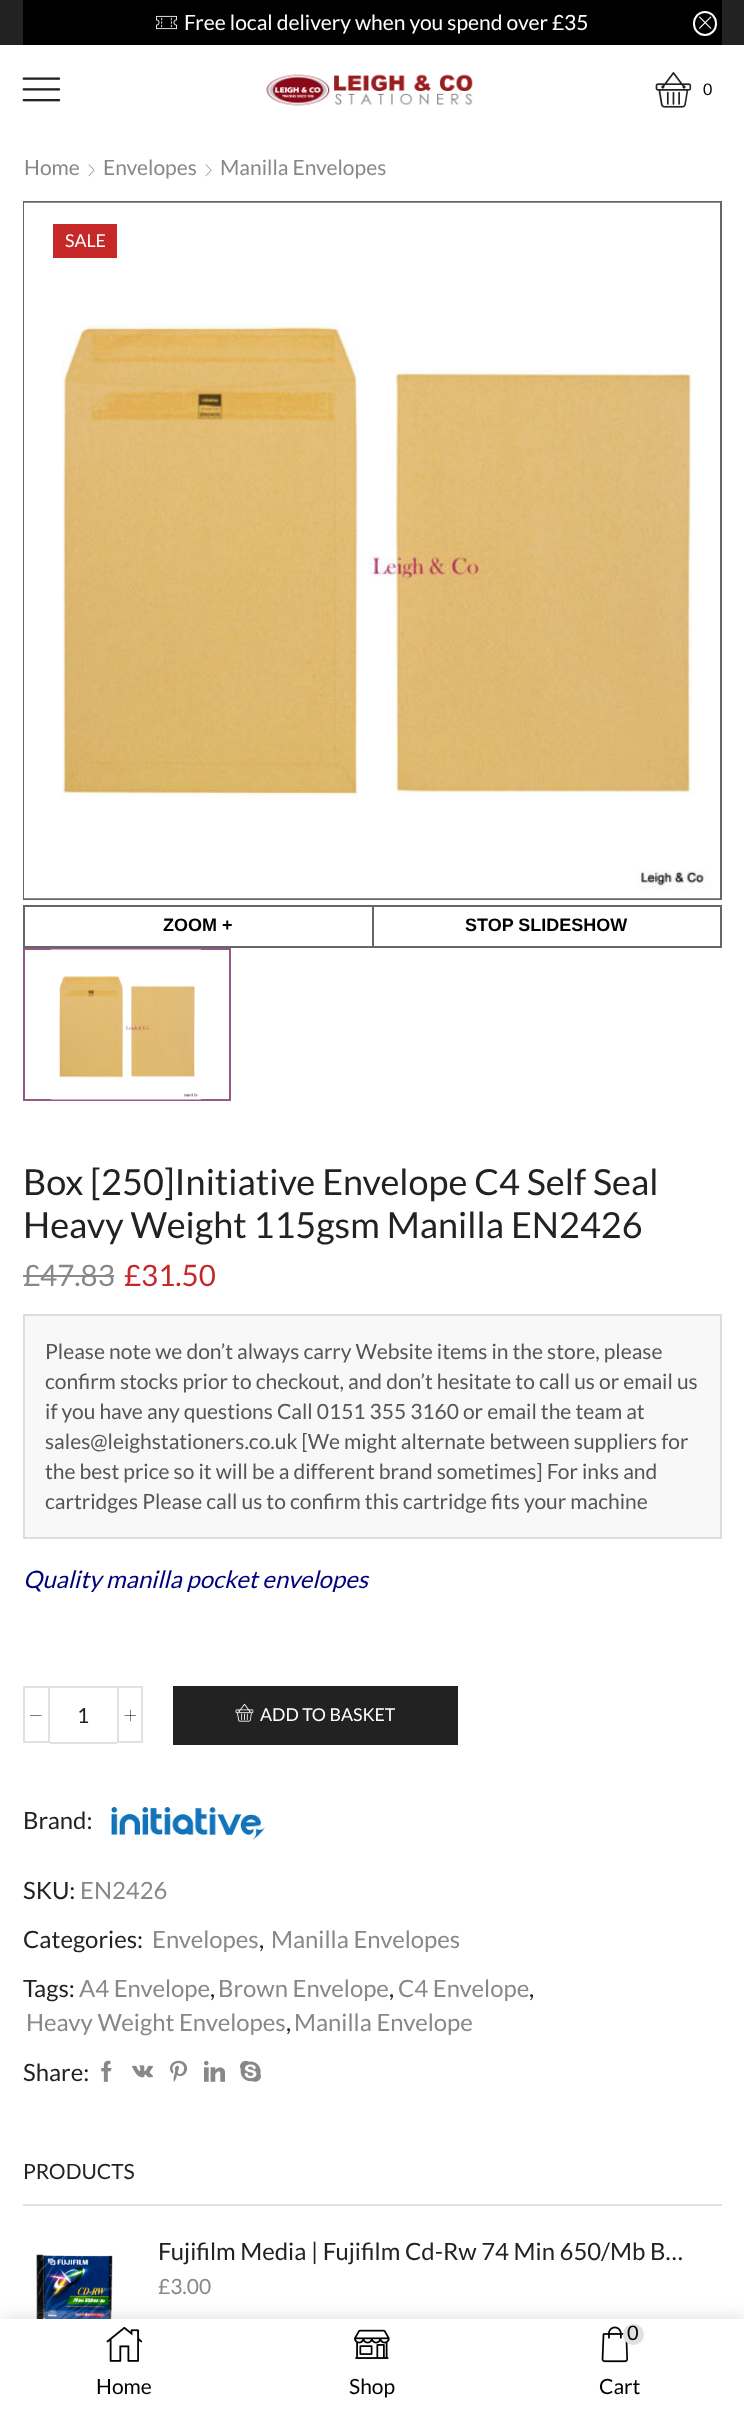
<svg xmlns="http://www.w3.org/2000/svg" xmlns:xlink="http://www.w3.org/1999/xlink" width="744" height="2409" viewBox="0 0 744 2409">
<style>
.cls-1{font:21px Lato;fill:#ffffff}
.cls-2{font:16px Lato;fill:#000000}
.cls-3{font:21px Lato;fill:#888888}
.cls-4{font:17.75px Lato;fill:#ffffff}
.cls-5{font:bold 18px Liberation Sans;fill:#000000}
.cls-6{font:36px Lato;fill:#222222}
.cls-7{font:29.5px Lato;fill:#888888}
.cls-8{font:29.5px Lato;fill:#c62828}
.cls-9{font:21px Lato;fill:#555555}
.cls-10{font:italic 24px Lato;fill:#000080}
.cls-11{font:21px Lato;fill:#222222}
.cls-12{font:23.9px Lato;fill:#222222}
.cls-13{font:23.9px Lato;fill:#888888}
.cls-14{font:21px Lato;fill:#000000}
.cls-15{font:20px Lato;fill:#000000}
</style>
<rect width="100%" height="100%" fill="#ffffff"/>
<rect fill="#222222" x="0" y="0" width="744" height="45"/>
<rect fill="#000000" x="23" y="0" width="699" height="45"/>
<image xlink:href="image0.png" x="156" y="15" width="21" height="15"/>
<rect fill="none" stroke="#ffffff" stroke-width="2" x="694" y="12" width="22" height="23" rx="11"/>
<image xlink:href="image1.png" x="699" y="16" width="13" height="13"/>
<image xlink:href="image2.png" x="22" y="77" width="39" height="25"/>
<image xlink:href="image3.png" x="266" y="74" width="207" height="32"/>
<image xlink:href="image4.png" x="655" y="72" width="37" height="36"/>
<image xlink:href="image5.png" x="88" y="164" width="7" height="13"/>
<image xlink:href="image5.png" x="205" y="164" width="7" height="13"/>
<rect fill="none" stroke="#666666" stroke-width="2" x="24" y="202" width="697" height="697"/>
<image xlink:href="image6.png" x="24" y="202" width="696" height="697"/>
<rect fill="#c62828" x="53" y="224" width="64" height="34"/>
<rect fill="none" stroke="#666666" stroke-width="2" x="24" y="906" width="697" height="41"/>
<rect fill="#666666" x="372" y="906" width="2" height="41"/>
<rect fill="none" stroke="#96588a" stroke-width="2" x="24" y="949" width="206" height="151"/>
<image xlink:href="image7.png" x="51" y="949" width="150" height="151"/>
<rect fill="#888888" x="23" y="1275" width="91" height="2"/>
<rect fill="#f8f8f8" stroke="#dddddd" stroke-width="2" x="24" y="1315" width="697" height="223"/>
<rect fill="none" stroke="#e1e1e1" stroke-width="2" x="24" y="1687" width="25" height="55"/>
<image xlink:href="image8.png" x="30" y="1715" width="12" height="1"/>
<rect fill="#e1e1e1" x="50" y="1686" width="67" height="2"/>
<rect fill="#e1e1e1" x="50" y="1742" width="67" height="2"/>
<rect fill="none" stroke="#e1e1e1" stroke-width="2" x="118" y="1687" width="24" height="55"/>
<image xlink:href="image9.png" x="124" y="1709" width="12" height="13"/>
<rect fill="#222222" x="173" y="1686" width="285" height="59"/>
<image xlink:href="image10.png" x="235" y="1703" width="19" height="19"/>
<image xlink:href="image11.png" x="111" y="1807" width="155" height="33"/>
<image xlink:href="image12.png" x="101" y="2060" width="11" height="22"/>
<image xlink:href="image13.png" x="132" y="2065" width="21" height="13"/>
<image xlink:href="image14.png" x="170" y="2060" width="18" height="22"/>
<image xlink:href="image15.png" x="204" y="2060" width="21" height="22"/>
<image xlink:href="image16.png" x="240" y="2060" width="21" height="22"/>
<rect fill="#e1e1e1" x="23" y="2204" width="699" height="2"/>
<image xlink:href="image17.png" x="36" y="2254" width="77" height="65"/>
<rect fill="#000000" fill-opacity="0.15" filter="blur(9px)" x="3" y="2319" width="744" height="90"/>
<rect fill="#ffffff" x="0" y="2319" width="744" height="90"/>
<image xlink:href="image18.png" x="106" y="2326" width="37" height="36"/>
<image xlink:href="image19.png" x="354" y="2329" width="36" height="30"/>
<image xlink:href="image20.png" x="601" y="2326" width="27" height="37"/>
<circle fill="#e1e1e1" cx="633.5" cy="2334.5" r="10.5"/>
<text class="cls-1" x="184" y="30">Free local delivery when you spend over £35</text>
<text class="cls-2" x="703" y="95">0</text>
<text class="cls-3" x="24" y="175">Home</text>
<text class="cls-3" x="103" y="175">Envelopes</text>
<text class="cls-3" x="220" y="175">Manilla Envelopes</text>
<text class="cls-4" x="65" y="247">SALE</text>
<text class="cls-5" x="163" y="931">ZOOM +</text>
<text class="cls-5" x="465" y="931">STOP SLIDESHOW</text>
<text class="cls-6"><tspan x="23" y="1195">Box [250]Initiative Envelope C4 Self Seal</tspan><tspan x="23" y="1238">Heavy Weight 115gsm Manilla EN2426</tspan></text>
<text class="cls-7" x="23" y="1286">£47.83</text>
<text class="cls-8" x="124" y="1286">£31.50</text>
<text class="cls-9"><tspan x="45" y="1359">Please note we don’t always carry Website items in the store, please</tspan><tspan x="45" y="1389">confirm stocks prior to checkout, and don’t hesitate to call us or email us</tspan><tspan x="45" y="1419">if you have any questions Call 0151 355 3160 or email the team at</tspan><tspan x="45" y="1449">sales@leighstationers.co.uk [We might alternate between suppliers for</tspan><tspan x="45" y="1479">the best price so it will be a different brand sometimes] For inks and</tspan><tspan x="45" y="1509">cartridges Please call us to confirm this cartridge fits your machine</tspan></text>
<text class="cls-10" x="23" y="1588">Quality manilla pocket envelopes</text>
<text class="cls-11" x="77" y="1723">1</text>
<text class="cls-4" x="260" y="1721">ADD TO BASKET</text>
<text class="cls-12" x="23" y="1829">Brand:</text>
<text class="cls-12" x="23" y="1899">SKU:</text>
<text class="cls-13" x="80" y="1899">EN2426</text>
<text class="cls-12" x="23" y="1948">Categories:</text>
<text class="cls-13" x="152" y="1948">Envelopes</text>
<text class="cls-12" x="259" y="1948">,</text>
<text class="cls-13" x="271" y="1948">Manilla Envelopes</text>
<text class="cls-12" x="23" y="1997">Tags:</text>
<text class="cls-13" x="79" y="1997">A4 Envelope</text>
<text class="cls-12" x="210" y="1997">,</text>
<text class="cls-13" x="218" y="1997">Brown Envelope</text>
<text class="cls-12" x="389" y="1997">,</text>
<text class="cls-13" x="398" y="1997">C4 Envelope</text>
<text class="cls-12" x="529" y="1997">,</text>
<text class="cls-13" x="26" y="2031">Heavy Weight Envelopes</text>
<text class="cls-12" x="286" y="2031">,</text>
<text class="cls-13" x="294" y="2031">Manilla Envelope</text>
<text class="cls-12" x="23" y="2081">Share:</text>
<text class="cls-11" x="23" y="2179">PRODUCTS</text>
<text class="cls-12" x="158" y="2260">Fujifilm Media | Fujifilm Cd-Rw 74 Min 650/Mb B…</text>
<text class="cls-3" x="158" y="2294">£3.00</text>
<text class="cls-14" x="96" y="2394">Home</text>
<text class="cls-14" x="349" y="2394">Shop</text>
<text class="cls-15" x="627" y="2340">0</text>
<text class="cls-14" x="599" y="2394">Cart</text>
</svg>
